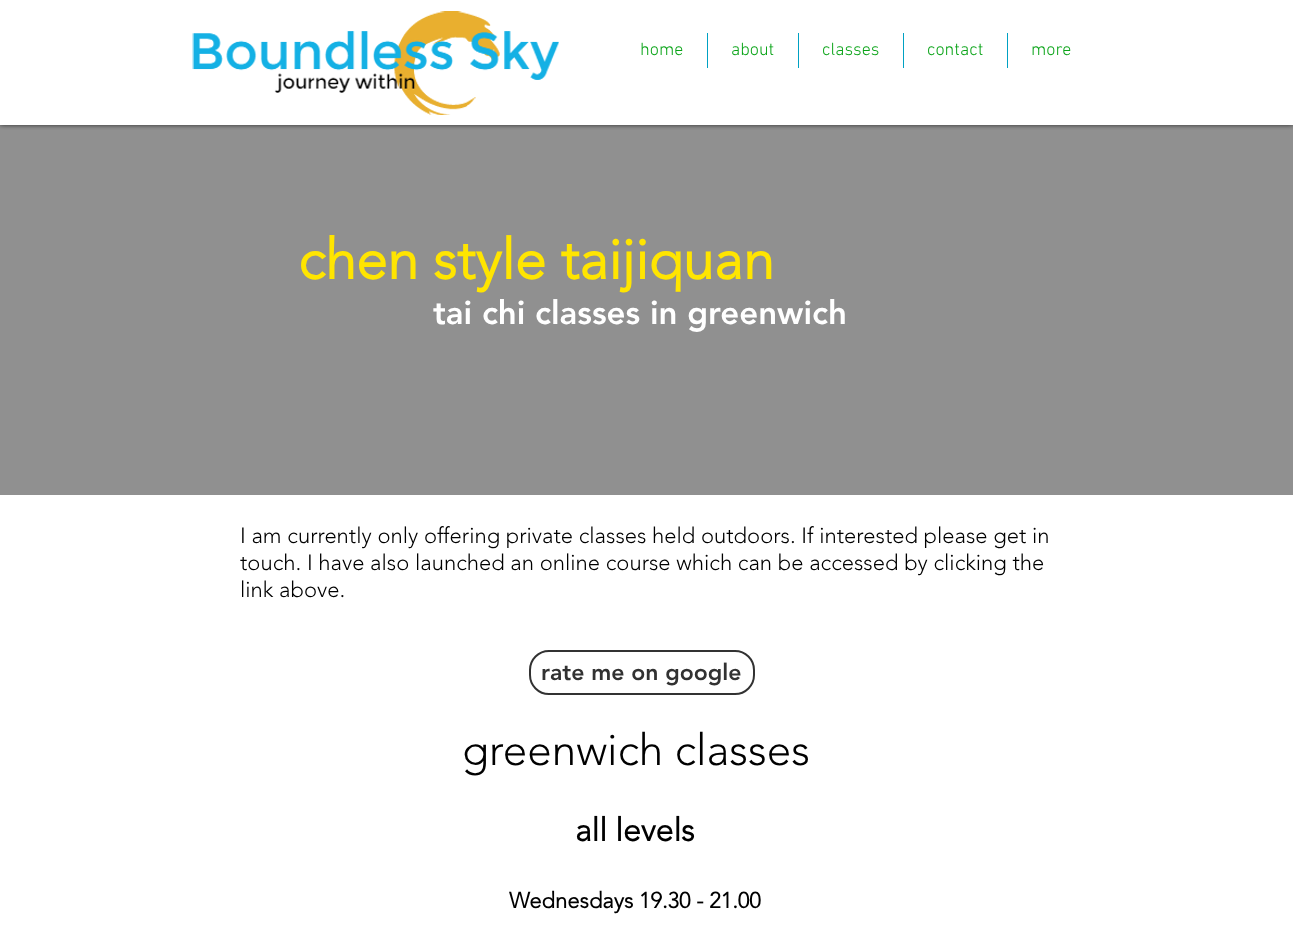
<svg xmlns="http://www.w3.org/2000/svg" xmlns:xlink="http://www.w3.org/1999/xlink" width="1293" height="934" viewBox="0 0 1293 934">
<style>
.cls-1{font:300 18px 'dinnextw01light';fill:#08a316}
.cls-2{font:bold 56px 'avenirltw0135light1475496';fill:#ffe500}
.cls-3{font:900 33px 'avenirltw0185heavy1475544';fill:#ffffff}
.cls-4{font:300 22px 'avenirltw0135light1475496';fill:#000000}
.cls-5{font:900 23px 'avenirltw0185heavy1475544';fill:#323232}
.cls-6{font:300 44px 'avenirltw0135light1475496';fill:#000000}
.cls-7{font:bold 32px 'avenirltw0135light1475496';fill:#000000}
.cls-8{font:bold 22px 'avenirltw0135light1475496';fill:#000000}
</style>
<defs>
<clipPath id="clip1"><rect x="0" y="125" width="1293" height="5"/></clipPath>
</defs>
<rect width="100%" height="100%" fill="#ffffff"/>
<rect fill="#909090" x="0" y="125" width="1293" height="370"/>
<g clip-path="url(#clip1)">
<rect fill="#000000" fill-opacity="0.7" filter="blur(2.5px)" x="0" y="0" width="1293" height="125"/>
</g>
<image xlink:href="image0.png" x="192" y="11" width="367" height="104"/>
<rect fill="#00a1c3" x="707" y="33" width="1" height="35"/>
<rect fill="#00a1c3" x="798" y="33" width="1" height="35"/>
<rect fill="#00a1c3" x="903" y="33" width="1" height="35"/>
<rect fill="#00a1c3" x="1007" y="33" width="1" height="35"/>
<rect fill="none" stroke="#323232" stroke-width="2" x="530" y="651" width="224" height="43" rx="19"/>
<text class="cls-1" x="640" y="55">home</text>
<text class="cls-1" x="731" y="55">about</text>
<text class="cls-1" x="822" y="55">classes</text>
<text class="cls-1" x="927" y="55">contact</text>
<text class="cls-1" x="1031" y="55">more</text>
<text class="cls-2" x="298" y="279">chen style taijiquan</text>
<text class="cls-3" x="433" y="324">tai chi classes in greenwich</text>
<text class="cls-4"><tspan x="240" y="543">I am currently only offering private classes held outdoors. If interested please get in</tspan><tspan x="240" y="570">touch. I have also launched an online course which can be accessed by clicking the</tspan><tspan x="240" y="597">link above.</tspan></text>
<text class="cls-5" x="541" y="680">rate me on google</text>
<text class="cls-6" x="462" y="765">greenwich classes</text>
<text class="cls-7" x="575" y="841">all levels</text>
<text class="cls-8" x="509" y="908">Wednesdays 19.30 - 21.00</text>
</svg>
